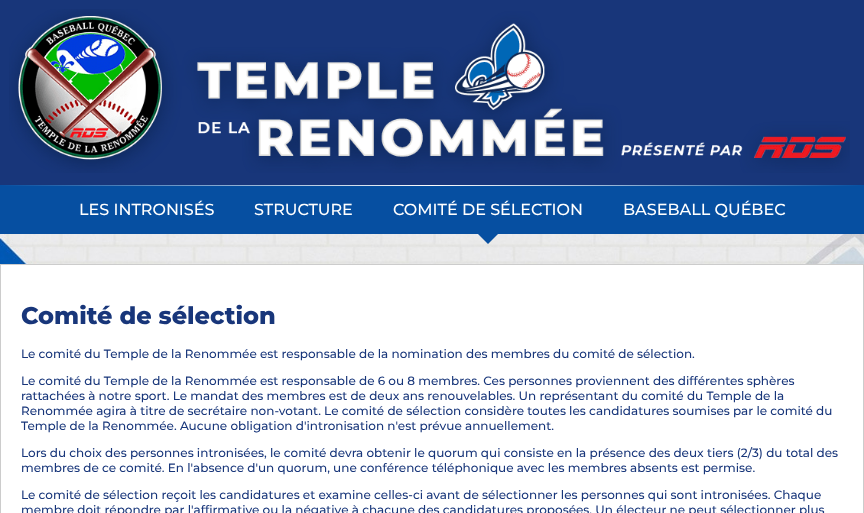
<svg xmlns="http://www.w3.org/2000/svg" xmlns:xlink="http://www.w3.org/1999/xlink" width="864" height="513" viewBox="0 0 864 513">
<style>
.cls-1{font:500 16px Montserrat;fill:#ffffff}
.cls-2{font:800 24px Montserrat;fill:#18367a}
.cls-3{font:500 12px Montserrat;fill:#18367a}
</style>
<defs>
<linearGradient id="g1" gradientUnits="userSpaceOnUse" x1="0" y1="186" x2="864" y2="185"><stop offset="0" stop-color="#064fa1"/><stop offset="0.5" stop-color="#ffffff"/><stop offset="1" stop-color="#064fa1"/></linearGradient>
</defs>
<rect width="100%" height="100%" fill="#18367a"/>
<image xlink:href="image0.png" x="9" y="9" width="841" height="164"/>
<rect fill="#064fa1" x="0" y="186" width="864" height="48"/>
<rect fill="url(#g1)" x="0" y="185" width="864" height="1"/>
<image xlink:href="image1.png" x="0" y="234" width="864" height="30"/>
<path fill="#064fa1" d="M478 234H498L488 244Z"/>
<rect fill="#ffffff" stroke="#cccccc" x="0.5" y="264.5" width="863" height="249"/>
<text class="cls-1" x="79" y="215">LES INTRONISÉS</text>
<text class="cls-1" x="254" y="215">STRUCTURE</text>
<text class="cls-1" x="393" y="215">COMITÉ DE SÉLECTION</text>
<text class="cls-1" x="623" y="215">BASEBALL QUÉBEC</text>
<text class="cls-2" x="21" y="324">Comité de sélection</text>
<text class="cls-3" x="21" y="358">Le comité du Temple de la Renommée est responsable de la nomination des membres du comité de sélection.</text>
<text class="cls-3"><tspan x="21" y="385">Le comité du Temple de la Renommée est responsable de 6 ou 8 membres. Ces personnes proviennent des différentes sphères</tspan><tspan x="21" y="400">rattachées à notre sport. Le mandat des membres est de deux ans renouvelables. Un représentant du comité du Temple de la</tspan><tspan x="21" y="415">Renommée agira à titre de secrétaire non-votant. Le comité de sélection considère toutes les candidatures soumises par le comité du</tspan><tspan x="21" y="430">Temple de la Renommée. Aucune obligation d'intronisation n'est prévue annuellement.</tspan></text>
<text class="cls-3"><tspan x="21" y="457">Lors du choix des personnes intronisées, le comité devra obtenir le quorum qui consiste en la présence des deux tiers (2/3) du total des</tspan><tspan x="21" y="472">membres de ce comité. En l'absence d'un quorum, une conférence téléphonique avec les membres absents est permise.</tspan></text>
<text class="cls-3"><tspan x="21" y="499">Le comité de sélection reçoit les candidatures et examine celles-ci avant de sélectionner les personnes qui sont intronisées. Chaque</tspan><tspan x="21" y="514">membre doit répondre par l'affirmative ou la négative à chacune des candidatures proposées. Un électeur ne peut sélectionner plus</tspan></text>
</svg>
